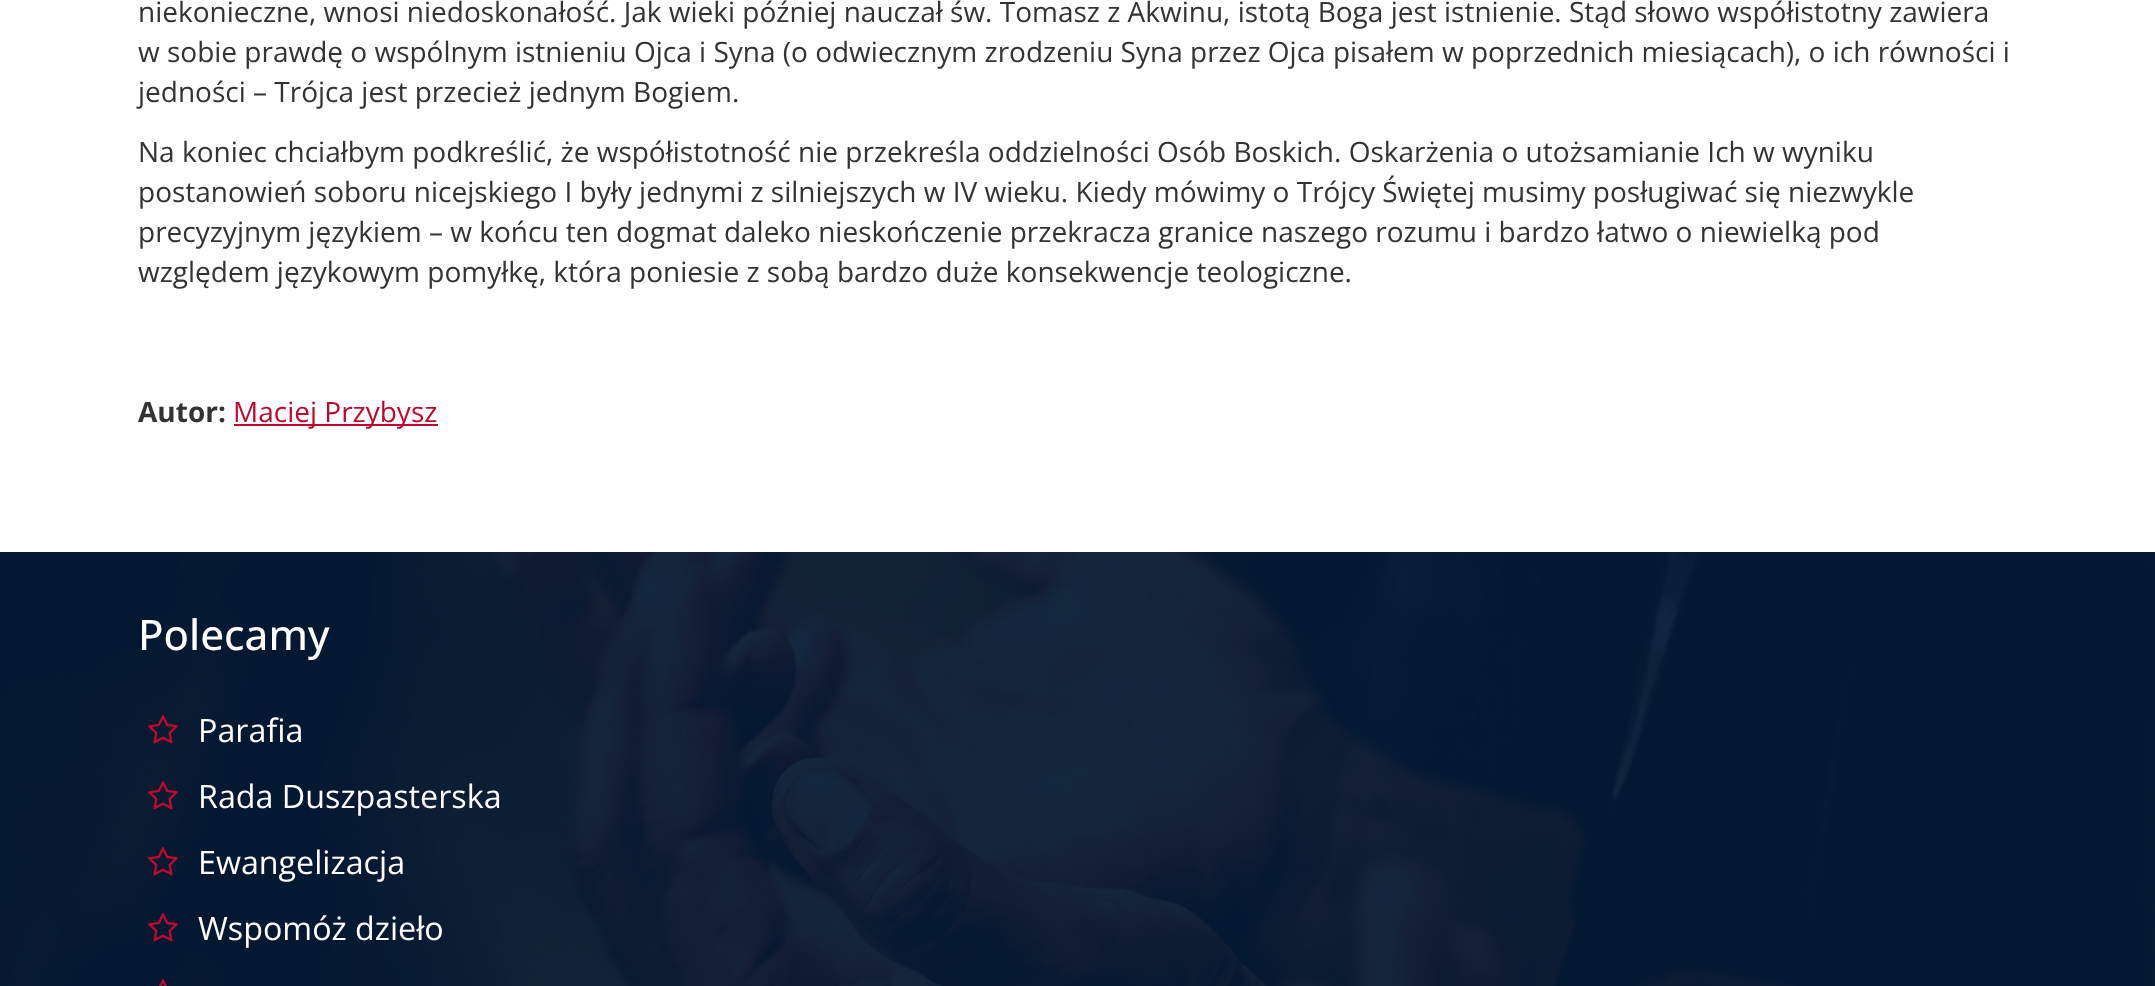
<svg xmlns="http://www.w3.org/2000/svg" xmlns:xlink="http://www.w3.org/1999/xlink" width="2155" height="986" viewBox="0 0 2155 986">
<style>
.cls-1{font:28px Open Sans;fill:#333333}
.cls-2{font:bold 28px Open Sans;fill:#333333}
.cls-3{font:28px Open Sans;fill:#bf0a30}
.cls-4{font:500 42px Open Sans;fill:#ffffff}
.cls-5{font:32.25px Open Sans;fill:#ffffff}
</style>
<rect width="100%" height="100%" fill="#ffffff"/>
<rect fill="#bf0a30" x="234" y="424" width="204" height="2"/>
<image xlink:href="image0.png" x="0" y="552" width="2155" height="434"/>
<image xlink:href="image1.png" x="148" y="715" width="30" height="29"/>
<image xlink:href="image2.png" x="148" y="781" width="30" height="29"/>
<image xlink:href="image3.png" x="148" y="847" width="30" height="29"/>
<image xlink:href="image4.png" x="148" y="913" width="30" height="29"/>
<image xlink:href="image5.png" x="159" y="979" width="8" height="7"/>
<text class="cls-1"><tspan x="138" y="22">niekonieczne, wnosi niedoskonałość. Jak wieki później nauczał św. Tomasz z Akwinu, istotą Boga jest istnienie. Stąd słowo współistotny zawiera</tspan><tspan x="138" y="62">w sobie prawdę o wspólnym istnieniu Ojca i Syna (o odwiecznym zrodzeniu Syna przez Ojca pisałem w poprzednich miesiącach), o ich równości i</tspan><tspan x="138" y="102">jedności – Trójca jest przecież jednym Bogiem.</tspan></text>
<text class="cls-1"><tspan x="138" y="162">Na koniec chciałbym podkreślić, że współistotność nie przekreśla oddzielności Osób Boskich. Oskarżenia o utożsamianie Ich w wyniku</tspan><tspan x="138" y="202">postanowień soboru nicejskiego I były jednymi z silniejszych w IV wieku. Kiedy mówimy o Trójcy Świętej musimy posługiwać się niezwykle</tspan><tspan x="138" y="242">precyzyjnym językiem – w końcu ten dogmat daleko nieskończenie przekracza granice naszego rozumu i bardzo łatwo o niewielką pod</tspan><tspan x="138" y="282">względem językowym pomyłkę, która poniesie z sobą bardzo duże konsekwencje teologiczne.</tspan></text>
<text class="cls-2" x="138" y="422">Autor:</text>
<text class="cls-3" x="233" y="422">Maciej Przybysz</text>
<text class="cls-4" x="138" y="650">Polecamy</text>
<text class="cls-5" x="198" y="742">Parafia</text>
<text class="cls-5" x="198" y="808">Rada Duszpasterska</text>
<text class="cls-5" x="198" y="874">Ewangelizacja</text>
<text class="cls-5" x="198" y="940">Wspomóż dzieło</text>
</svg>
